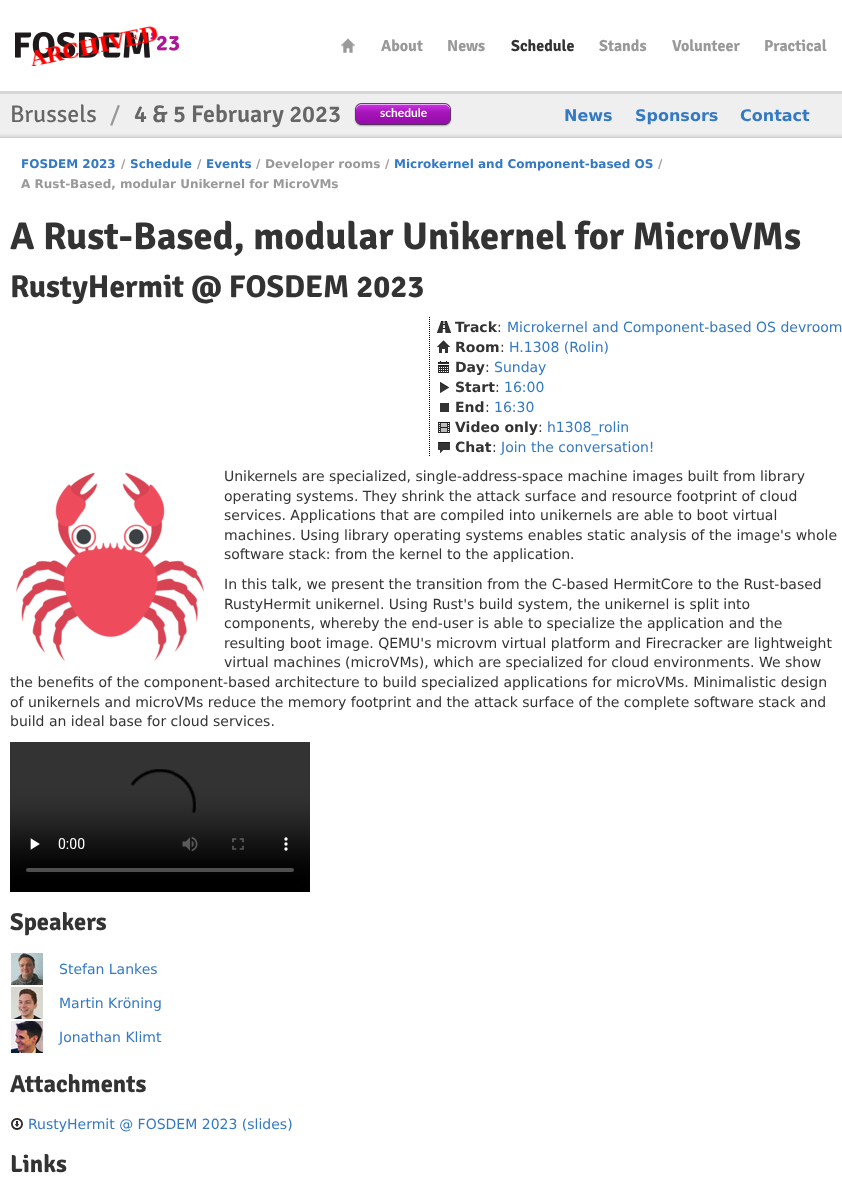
<svg xmlns="http://www.w3.org/2000/svg" xmlns:xlink="http://www.w3.org/1999/xlink" width="842" height="1198" viewBox="0 0 842 1198">
<style>
.cls-1{font:bold 16px Signika;fill:#999999}
.cls-2{font:bold 16px Signika;fill:#333333}
.cls-3{font:24px Signika;fill:#666666}
.cls-4{font:24px Signika;fill:#999999}
.cls-5{font:600 24px Signika;fill:#666666}
.cls-6{font:bold 12px Lato;fill:#ffffff}
.cls-7{font:bold 16px DejaVu Sans;fill:#3479c4}
.cls-8{font:bold 12px DejaVu Sans;fill:#3479c4}
.cls-9{font:bold 12px DejaVu Sans;fill:#9f9f9f}
.cls-10{font:bold 12px DejaVu Sans;fill:#999999}
.cls-11{font:bold 38.5px Signika;fill:#333333}
.cls-12{font:bold 31.5px Signika;fill:#333333}
.cls-13{font:bold 14px DejaVu Sans;fill:#333333}
.cls-14{font:14px DejaVu Sans;fill:#333333}
.cls-15{font:14px DejaVu Sans;fill:#3479c4}
.cls-16{font:bold 24.5px Signika;fill:#333333}
</style>
<rect width="100%" height="100%" fill="#ffffff"/>
<image xlink:href="image0.png" x="15" y="26" width="164" height="40"/>
<image xlink:href="image1.png" x="341" y="38" width="14" height="15"/>
<rect fill="#efefef" x="0" y="94" width="842" height="40"/>
<rect fill="#d7d7d7" x="0" y="91" width="842" height="3"/>
<image xlink:href="image2.png" x="0" y="134" width="842" height="4"/>
<image xlink:href="image3.png" x="354" y="103" width="98" height="24"/>
<path fill="none" stroke="#000000" stroke-dasharray="1 1" d="M429.5 317V457"/>
<image xlink:href="image4.png" x="437" y="321" width="14" height="12"/>
<image xlink:href="image5.png" x="437" y="340" width="13" height="13"/>
<image xlink:href="image6.png" x="438" y="361" width="11" height="12"/>
<image xlink:href="image7.png" x="440" y="382" width="9" height="11"/>
<rect fill="#333333" x="440" y="403" width="9" height="9"/>
<image xlink:href="image8.png" x="438" y="422" width="12" height="11"/>
<image xlink:href="image9.png" x="438" y="442" width="12" height="11"/>
<image xlink:href="image10.png" x="16" y="472" width="188" height="190"/>
<image xlink:href="image11.png" x="10" y="742" width="300" height="150"/>
<image xlink:href="image12.png" x="11" y="953" width="32" height="32"/>
<image xlink:href="image13.png" x="11" y="987" width="32" height="32"/>
<image xlink:href="image14.png" x="11" y="1021" width="32" height="32"/>
<image xlink:href="image15.png" x="11" y="1118" width="12" height="12"/>
<text class="cls-1" x="381" y="51">About</text>
<text class="cls-1" x="447" y="51">News</text>
<text class="cls-2" x="511" y="51">Schedule</text>
<text class="cls-1" x="599" y="51">Stands</text>
<text class="cls-1" x="672" y="51">Volunteer</text>
<text class="cls-1" x="764" y="51">Practical</text>
<text class="cls-3" x="10" y="122">Brussels</text>
<text class="cls-4" x="110" y="122">/</text>
<text class="cls-5" x="134" y="122">4 &amp; 5 February 2023</text>
<text class="cls-6" x="380" y="117">schedule</text>
<text class="cls-7" x="564" y="121">News</text>
<text class="cls-7" x="635" y="121">Sponsors</text>
<text class="cls-7" x="740" y="121">Contact</text>
<text class="cls-8" x="21" y="168">FOSDEM 2023</text>
<text class="cls-9" x="121" y="168">/</text>
<text class="cls-8" x="130" y="168">Schedule</text>
<text class="cls-9" x="197" y="168">/</text>
<text class="cls-8" x="206" y="168">Events</text>
<text class="cls-9" x="256" y="168">/</text>
<text class="cls-10" x="265" y="168">Developer rooms</text>
<text class="cls-9" x="385" y="168">/</text>
<text class="cls-8" x="394" y="168">Microkernel and Component-based OS</text>
<text class="cls-9" x="658" y="168">/</text>
<text class="cls-10" x="21" y="188">A Rust-Based, modular Unikernel for MicroVMs</text>
<text class="cls-11" x="10" y="249">A Rust-Based, modular Unikernel for MicroVMs</text>
<text class="cls-12" x="10" y="297">RustyHermit @ FOSDEM 2023</text>
<text class="cls-13" x="455" y="332">Track</text>
<text class="cls-14" x="497" y="332">:</text>
<text class="cls-15" x="507" y="332">Microkernel and Component-based OS devroom</text>
<text class="cls-13" x="455" y="352">Room</text>
<text class="cls-14" x="500" y="352">:</text>
<text class="cls-15" x="509" y="352">H.1308 (Rolin)</text>
<text class="cls-13" x="455" y="372">Day</text>
<text class="cls-14" x="485" y="372">:</text>
<text class="cls-15" x="494" y="372">Sunday</text>
<text class="cls-13" x="455" y="392">Start</text>
<text class="cls-14" x="495" y="392">:</text>
<text class="cls-15" x="504" y="392">16:00</text>
<text class="cls-13" x="455" y="412">End</text>
<text class="cls-14" x="485" y="412">:</text>
<text class="cls-15" x="494" y="412">16:30</text>
<text class="cls-13" x="455" y="432">Video only</text>
<text class="cls-14" x="538" y="432">:</text>
<text class="cls-15" x="547" y="432">h1308_rolin</text>
<text class="cls-13" x="455" y="452">Chat</text>
<text class="cls-14" x="492" y="452">:</text>
<text class="cls-15" x="501" y="452">Join the conversation!</text>
<text class="cls-14"><tspan x="224" y="481">Unikernels are specialized, single-address-space machine images built from library</tspan><tspan x="224" y="501">operating systems. They shrink the attack surface and resource footprint of cloud</tspan><tspan x="224" y="520">services. Applications that are compiled into unikernels are able to boot virtual</tspan><tspan x="224" y="540">machines. Using library operating systems enables static analysis of the image's whole</tspan><tspan x="224" y="559">software stack: from the kernel to the application.</tspan></text>
<text class="cls-14"><tspan x="224" y="589">In this talk, we present the transition from the C-based HermitCore to the Rust-based</tspan><tspan x="224" y="609">RustyHermit unikernel. Using Rust's build system, the unikernel is split into</tspan><tspan x="224" y="628">components, whereby the end-user is able to specialize the application and the</tspan><tspan x="224" y="648">resulting boot image. QEMU's microvm virtual platform and Firecracker are lightweight</tspan><tspan x="224" y="667">virtual machines (microVMs), which are specialized for cloud environments. We show</tspan></text>
<text class="cls-14"><tspan x="10" y="687">the benefits of the component-based architecture to build specialized applications for microVMs. Minimalistic design</tspan><tspan x="10" y="707">of unikernels and microVMs reduce the memory footprint and the attack surface of the complete software stack and</tspan><tspan x="10" y="726">build an ideal base for cloud services.</tspan></text>
<text class="cls-16" x="10" y="930">Speakers</text>
<text class="cls-15" x="59" y="974">Stefan Lankes</text>
<text class="cls-15" x="59" y="1008">Martin Kröning</text>
<text class="cls-15" x="59" y="1042">Jonathan Klimt</text>
<text class="cls-16" x="10" y="1092">Attachments</text>
<text class="cls-15" x="28" y="1129">RustyHermit @ FOSDEM 2023 (slides)</text>
<text class="cls-16" x="10" y="1172">Links</text>
</svg>
